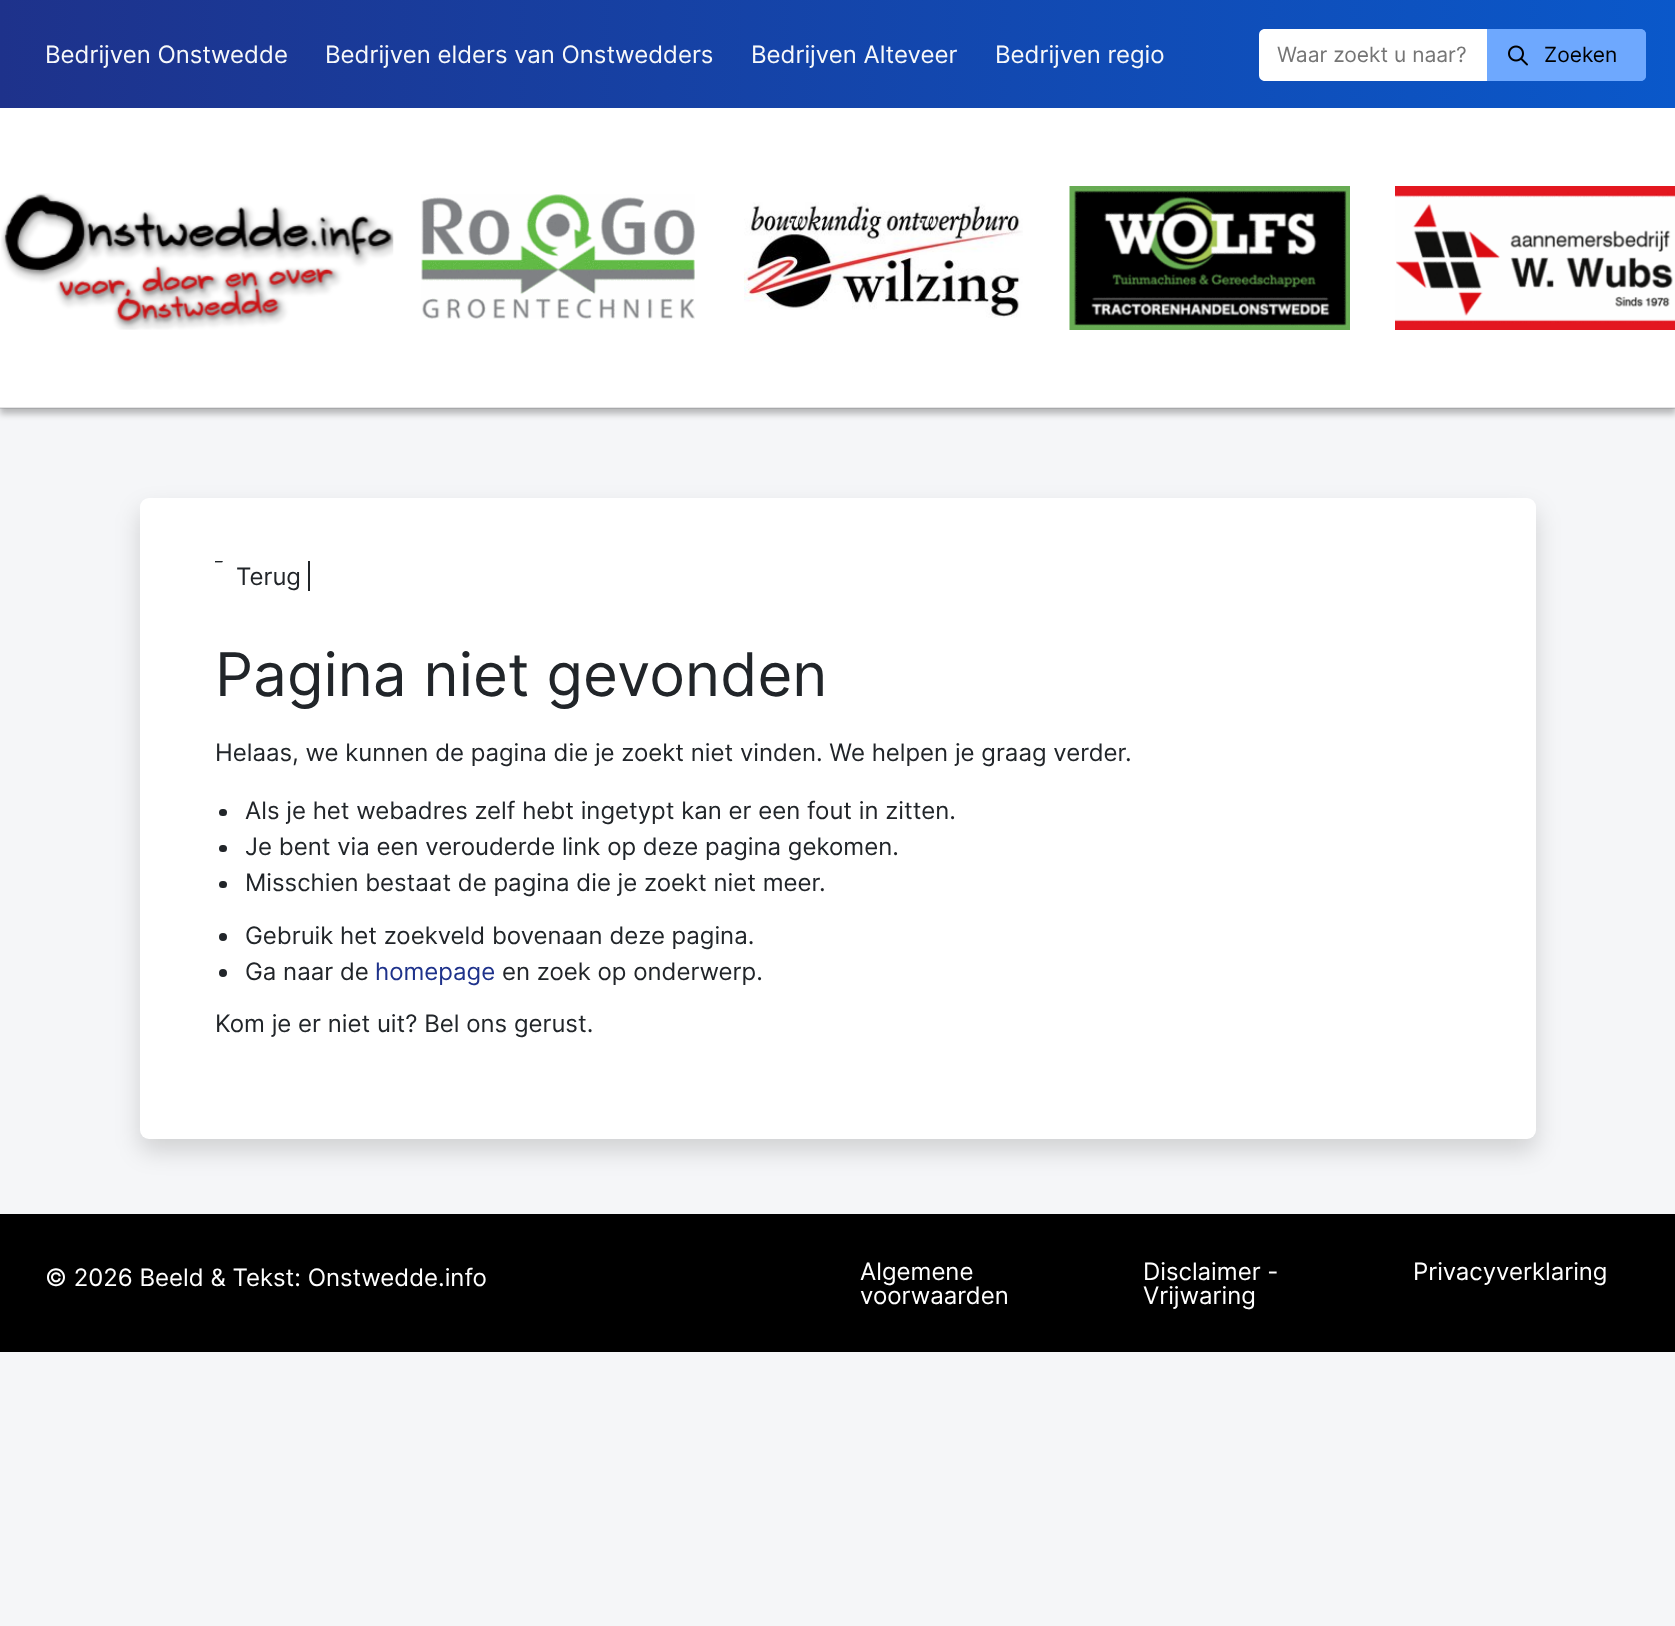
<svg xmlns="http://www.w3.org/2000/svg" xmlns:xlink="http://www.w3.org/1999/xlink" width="1675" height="1626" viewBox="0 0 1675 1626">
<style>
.cls-1{font:24px Inter;fill:#f8f9fa}
.cls-2{font:21px Inter;fill:#757575}
.cls-3{font:21px Inter;fill:#000000}
.cls-4{font:24px Inter;fill:#212529}
.cls-5{font:60px Inter;fill:#212529}
.cls-6{font:24px Inter;fill:#1e328b}
.cls-7{font:24px Inter;fill:#ffffff}
</style>
<defs>
<linearGradient id="g1" gradientUnits="userSpaceOnUse" x1="0" y1="54" x2="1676" y2="54"><stop offset="0" stop-color="#1e328b"/><stop offset="1" stop-color="#0a58ca"/></linearGradient>
</defs>
<rect width="100%" height="100%" fill="#f5f6f8"/>
<rect fill="#000000" fill-opacity="0.25" filter="blur(3px)" x="0" y="6" width="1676" height="408"/>
<rect fill="#ffffff" x="0" y="108" width="1675" height="300"/>
<rect fill="url(#g1)" x="0" y="0" width="1675" height="108"/>
<path fill="#ffffff" d="M1265 29H1487V81H1265C1261.5 81 1259 78.5 1259 75V35C1259 31.5 1261.5 29 1265 29Z"/>
<path fill="#6ea8fe" d="M1487 29H1640C1643.5 29 1646 31.5 1646 35V75C1646 78.5 1643.5 81 1640 81H1487Z"/>
<image xlink:href="image0.png" x="1508" y="45" width="20" height="21"/>
<path fill="none" stroke="#6ea8fe" stroke-width="2" d="M1488 30H1640C1643 30 1645 32 1645 35V75C1645 78 1643 80 1640 80H1488Z"/>
<rect fill="#212529" fill-opacity="0.12" x="0" y="407" width="1675" height="2"/>
<image xlink:href="image1.png" x="1" y="193" width="393" height="137"/>
<image xlink:href="image2.png" x="421" y="194" width="274" height="125"/>
<image xlink:href="image3.png" x="744" y="202" width="279" height="116"/>
<image xlink:href="image4.png" x="1069" y="186" width="281" height="144"/>
<image xlink:href="image5.png" x="1395" y="186" width="280" height="144"/>
<rect fill="#000000" fill-opacity="0.15" filter="blur(12px)" x="140" y="510" width="1396" height="641" rx="9"/>
<rect fill="#ffffff" x="140" y="498" width="1396" height="641" rx="9"/>
<image xlink:href="image6.png" x="215" y="561" width="8" height="2"/>
<rect fill="#212529" x="308" y="561" width="2" height="30"/>
<rect fill="#212529" x="219" y="809" width="8" height="7" rx="3.5"/>
<rect fill="#212529" x="219" y="845" width="8" height="7" rx="3.5"/>
<rect fill="#212529" x="219" y="881" width="8" height="7" rx="3.5"/>
<circle fill="#212529" cx="223" cy="937" r="4"/>
<circle fill="#212529" cx="223" cy="973" r="4"/>
<rect fill="#000000" x="0" y="1214" width="1675" height="138"/>
<text class="cls-1" x="45" y="63">Bedrijven Onstwedde</text>
<text class="cls-1" x="325" y="63">Bedrijven elders van Onstwedders</text>
<text class="cls-1" x="751" y="63">Bedrijven Alteveer</text>
<text class="cls-1" x="995" y="63">Bedrijven regio</text>
<text class="cls-2" x="1277" y="62">Waar zoekt u naar?</text>
<text class="cls-3" x="1544" y="62">Zoeken</text>
<text class="cls-4" x="236" y="585">Terug</text>
<text class="cls-5" x="215" y="696">Pagina niet gevonden</text>
<text class="cls-4" x="215" y="761">Helaas, we kunnen de pagina die je zoekt niet vinden. We helpen je graag verder.</text>
<text class="cls-4"><tspan x="245" y="819">Als je het webadres zelf hebt ingetypt kan er een fout in zitten.</tspan><tspan x="245" y="855">Je bent via een verouderde link op deze pagina gekomen.</tspan><tspan x="245" y="891">Misschien bestaat de pagina die je zoekt niet meer.</tspan></text>
<text class="cls-4"><tspan x="245" y="944">Gebruik het zoekveld bovenaan deze pagina.</tspan><tspan x="245" y="980">Ga naar de</tspan></text>
<text class="cls-6" x="375" y="980">homepage</text>
<text class="cls-4" x="502" y="980">en zoek op onderwerp.</text>
<text class="cls-4" x="215" y="1032">Kom je er niet uit? Bel ons gerust.</text>
<text class="cls-7" x="45" y="1286">© 2026 Beeld &amp; Tekst: Onstwedde.info</text>
<text class="cls-7"><tspan x="860" y="1280">Algemene</tspan><tspan x="860" y="1304">voorwaarden</tspan></text>
<text class="cls-7"><tspan x="1143" y="1280">Disclaimer -</tspan><tspan x="1143" y="1304">Vrijwaring</tspan></text>
<text class="cls-7" x="1413" y="1280">Privacyverklaring</text>
</svg>
